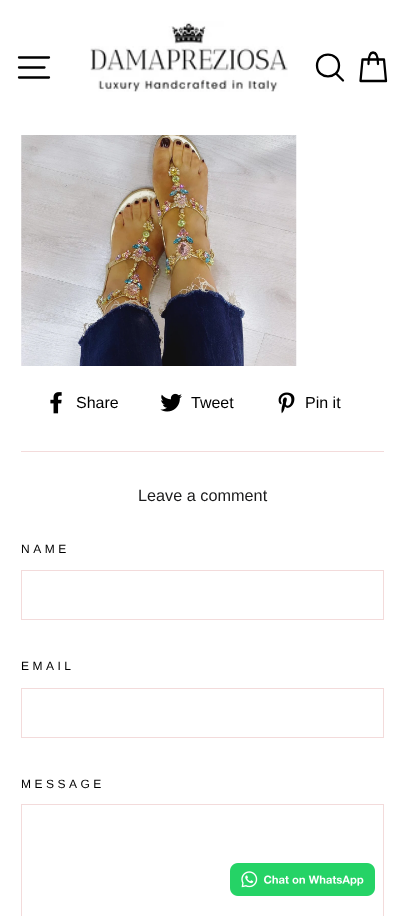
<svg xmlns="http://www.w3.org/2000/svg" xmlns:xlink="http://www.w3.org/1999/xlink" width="405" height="916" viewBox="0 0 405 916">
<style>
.cls-1{font:16px Arimo;fill:#000000}
.cls-2{font:16.25px Arimo;fill:#1a1a1b}
.cls-3{font:12px Arimo;letter-spacing:3.5px;fill:#000000}
</style>
<rect width="100%" height="100%" fill="#ffffff"/>
<image xlink:href="image1.png" x="21" y="135" width="276" height="231"/>
<rect fill="#000000" fill-opacity="0.2" filter="blur(0.5px)" x="0" y="0" width="405" height="135"/>
<rect fill="#ffffff" x="0" y="0" width="405" height="135"/>
<path fill="none" stroke="#000000" stroke-width="2.3" stroke-linecap="round" stroke-linejoin="round" d="M19 57.5H49M19 67.5H44.5M19 77.5H49"/>
<image xlink:href="image0.png" x="90" y="21" width="198" height="71"/>
<path fill="none" stroke="#000000" stroke-width="2.3" stroke-linecap="round" stroke-linejoin="round" d="M339 65.5C339 80 317 80 317 65.5C317 51 339 51 339 65.5ZM343 80.5L336 73.5"/>
<path fill="none" stroke="#000000" stroke-width="2.3" stroke-linecap="round" stroke-linejoin="round" d="M368.5 64C368.5 54.5 370.5 52.5 373 52.5C375.5 52.5 378 54.5 378 64M362.5 59.5H384L386 81H360.5Z"/>
<image xlink:href="image2.png" x="50" y="392" width="12" height="22"/>
<image xlink:href="image3.png" x="160" y="393" width="22" height="19"/>
<image xlink:href="image4.png" x="278" y="392" width="17" height="22"/>
<rect fill="#f3dbdb" x="21" y="451" width="363" height="1"/>
<rect fill="none" stroke="#f3dbdb" x="21.5" y="570.5" width="362" height="49"/>
<rect fill="none" stroke="#f3dbdb" x="21.5" y="688.5" width="362" height="49"/>
<rect fill="none" stroke="#f3dbdb" x="21.5" y="804.5" width="362" height="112"/>
<image xlink:href="image5.png" x="230" y="863" width="145" height="33"/>
<text class="cls-1" x="76" y="408">Share</text>
<text class="cls-1" x="191" y="408">Tweet</text>
<text class="cls-1" x="305" y="408">Pin it</text>
<text class="cls-2" x="138" y="501">Leave a comment</text>
<text class="cls-3" x="21" y="553">NAME</text>
<text class="cls-3" x="21" y="670">EMAIL</text>
<text class="cls-3" x="21" y="788">MESSAGE</text>
</svg>
